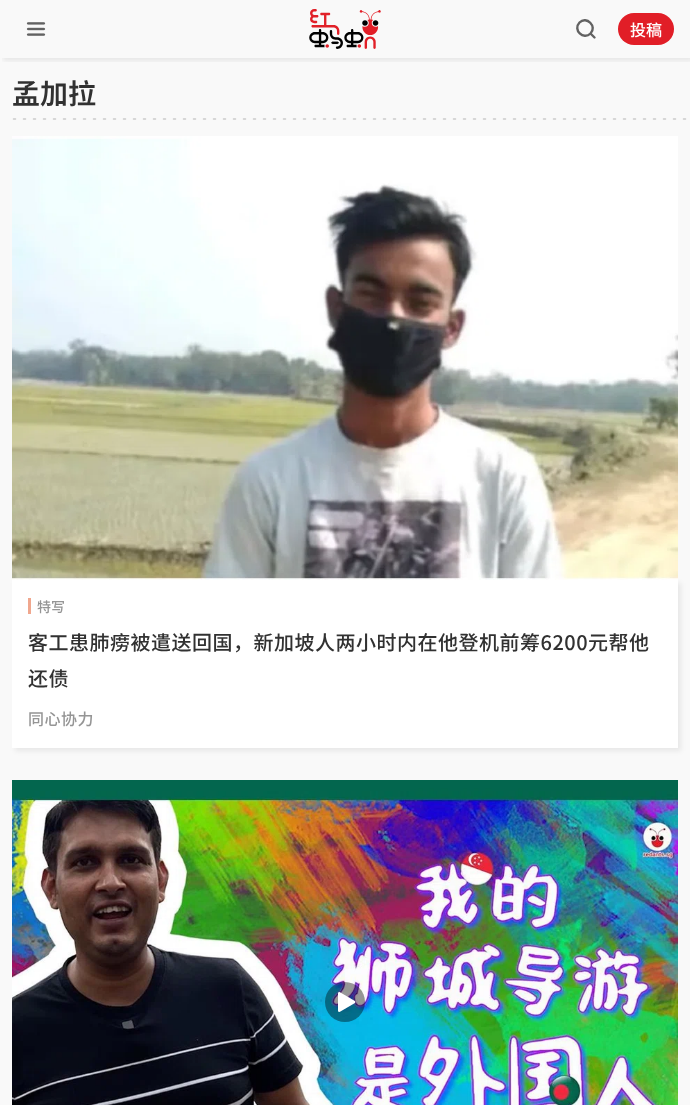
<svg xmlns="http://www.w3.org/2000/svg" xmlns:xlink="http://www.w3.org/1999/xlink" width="690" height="1105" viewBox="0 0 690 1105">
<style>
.cls-1{font:500 16px Noto Sans SC;fill:#ffffff}
.cls-2{font:600 28px Noto Sans SC;fill:#313131}
.cls-3{font:500 14px Noto Sans SC;fill:#959595}
.cls-4{font:500 20px Noto Sans SC;letter-spacing:0.5px;fill:#313131}
.cls-5{font:500 16px Noto Sans SC;letter-spacing:0.5px;fill:#959595}
</style>
<defs>
<clipPath id="clip1"><rect x="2" y="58" width="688" height="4"/></clipPath>
</defs>
<rect width="100%" height="100%" fill="#f9f9f9"/>
<g clip-path="url(#clip1)">
<rect fill="#000000" fill-opacity="0.07" filter="blur(2.5px)" x="3" y="3" width="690" height="58"/>
</g>
<image xlink:href="image0.png" x="26" y="22" width="20" height="14"/>
<image xlink:href="image1.png" x="309" y="9" width="72" height="40"/>
<path fill="none" stroke="#626262" stroke-width="2.4" stroke-linecap="round" stroke-linejoin="round" d="M594.5 37.5L590.5 33.5M590.5 33.5C597.5 26.5 586.5 15.5 579.5 22.5C572.5 30 583.5 40.5 590.5 33.5Z"/>
<rect fill="#e11e27" x="618" y="13" width="56" height="32" rx="16"/>
<path fill="none" stroke="#cacaca" stroke-width="1.5" stroke-linecap="round" stroke-dasharray="2 8" d="M13.5 119H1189.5"/>
<rect fill="#000000" fill-opacity="0.07" filter="blur(2.5px)" x="15" y="583" width="666" height="168"/>
<image xlink:href="image2.png" x="12" y="136" width="666" height="444"/>
<rect fill="#ffffff" x="12" y="580" width="666" height="168"/>
<rect fill="#f0a78e" x="28" y="598" width="3" height="16"/>
<image xlink:href="image3.png" x="12" y="780" width="666" height="325"/>
<circle fill="#000000" fill-opacity="0.4" cx="345" cy="1002" r="20"/>
<image xlink:href="image4.png" x="338" y="992" width="18" height="20"/>
<text class="cls-1" x="630" y="36">投稿</text>
<text class="cls-2" x="12" y="104">孟加拉</text>
<text class="cls-3" x="37" y="612">特写</text>
<text class="cls-4"><tspan x="28" y="650">客工患肺痨被遣送回国，新加坡人两小时内在他登机前筹6200元帮他</tspan><tspan x="28" y="686">还债</tspan></text>
<text class="cls-5" x="28" y="725">同心协力</text>
</svg>
